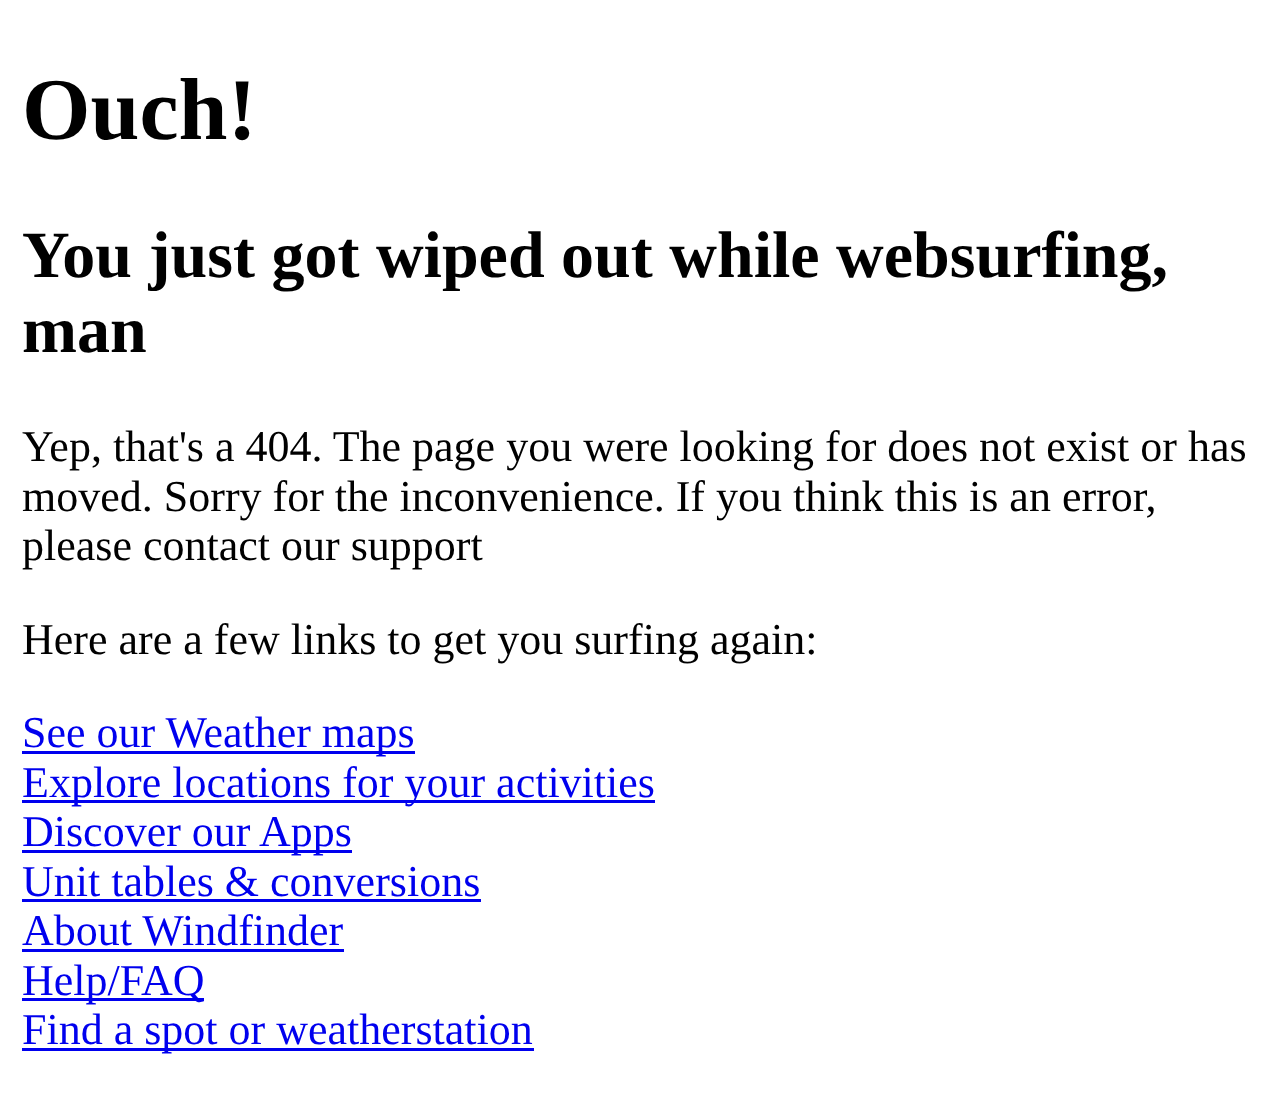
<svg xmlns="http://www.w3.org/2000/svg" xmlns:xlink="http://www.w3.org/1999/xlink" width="1283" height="1116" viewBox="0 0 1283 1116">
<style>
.cls-1{font:bold 88px Liberation Serif;fill:#000000}
.cls-2{font:bold 66px Liberation Serif;fill:#000000}
.cls-3{font:44px Liberation Serif;fill:#000000}
.cls-4{font:44px Liberation Serif;fill:#0000ee}
</style>
<rect width="100%" height="100%" fill="#ffffff"/>
<rect fill="#0000ee" x="22" y="751" width="393" height="3"/>
<rect fill="#0000ee" x="22" y="800" width="633" height="3"/>
<rect fill="#0000ee" x="22" y="850" width="330" height="3"/>
<rect fill="#0000ee" x="22" y="899" width="459" height="3"/>
<rect fill="#0000ee" x="22" y="949" width="322" height="3"/>
<rect fill="#0000ee" x="22" y="998" width="182" height="3"/>
<rect fill="#0000ee" x="22" y="1048" width="512" height="3"/>
<text class="cls-1" x="22" y="139">Ouch!</text>
<text class="cls-2"><tspan x="22" y="277">You just got wiped out while websurfing,</tspan><tspan x="22" y="352">man</tspan></text>
<text class="cls-3"><tspan x="22" y="461">Yep, that's a 404. The page you were looking for does not exist or has</tspan><tspan x="22" y="511">moved. Sorry for the inconvenience. If you think this is an error,</tspan><tspan x="22" y="560">please contact our support</tspan></text>
<text class="cls-3" x="22" y="654">Here are a few links to get you surfing again:</text>
<text class="cls-4"><tspan x="22" y="747">See our Weather maps</tspan><tspan x="22" y="797">Explore locations for your activities</tspan><tspan x="22" y="846">Discover our Apps</tspan><tspan x="22" y="896">Unit tables &amp; conversions</tspan><tspan x="22" y="945">About Windfinder</tspan><tspan x="22" y="995">Help/FAQ</tspan><tspan x="22" y="1044">Find a spot or weatherstation</tspan></text>
</svg>
